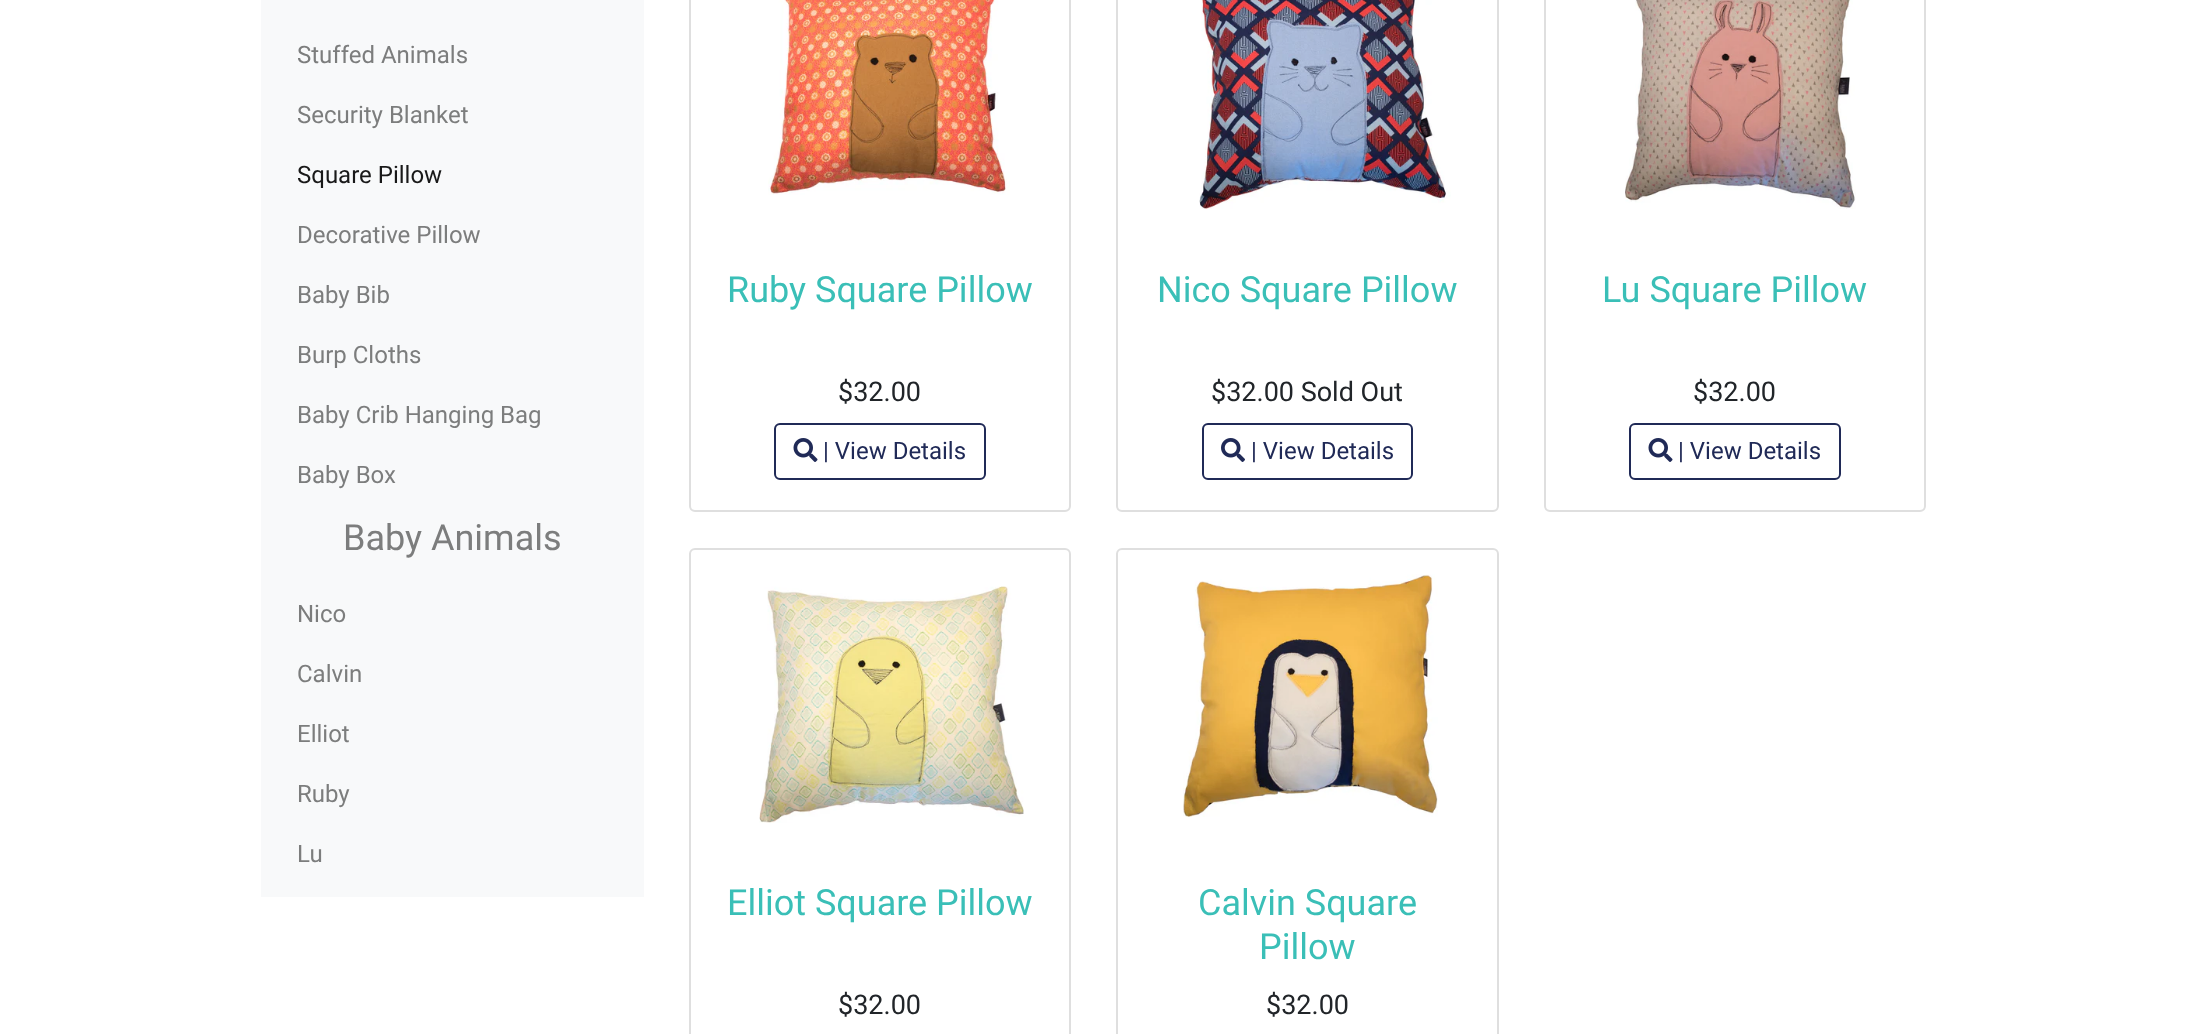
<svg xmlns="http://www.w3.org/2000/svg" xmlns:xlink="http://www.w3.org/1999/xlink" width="2187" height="1034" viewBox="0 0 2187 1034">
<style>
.cls-1{font:24px Roboto;fill:#7c7d7d}
.cls-2{font:24px Roboto;fill:#191919}
.cls-3{font:36px Roboto;fill:#7c7d7d}
.cls-4{font:36px Roboto;fill:#3abfb7}
.cls-5{font:27px Roboto;fill:#212529}
.cls-6{font:24px Roboto;fill:#202a57}
</style>
<rect width="100%" height="100%" fill="#ffffff"/>
<rect fill="#f8f9fa" x="261" y="0" width="383" height="897"/>
<rect fill="none" stroke="#dfdfdf" stroke-width="2" x="690" y="-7" width="380" height="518" rx="5"/>
<image xlink:href="image0.png" x="768" y="0" width="242" height="195"/>
<rect fill="none" stroke="#202a57" stroke-width="2" x="775" y="424" width="210" height="55" rx="5"/>
<image xlink:href="image1.png" x="793" y="438" width="25" height="24"/>
<rect fill="none" stroke="#dfdfdf" stroke-width="2" x="1117" y="-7" width="381" height="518" rx="5"/>
<image xlink:href="image2.png" x="1199" y="0" width="252" height="209"/>
<rect fill="none" stroke="#202a57" stroke-width="2" x="1203" y="424" width="209" height="55" rx="5"/>
<image xlink:href="image3.png" x="1221" y="438" width="24" height="24"/>
<rect fill="none" stroke="#dfdfdf" stroke-width="2" x="1545" y="-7" width="380" height="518" rx="5"/>
<image xlink:href="image4.png" x="1625" y="0" width="231" height="209"/>
<rect fill="none" stroke="#202a57" stroke-width="2" x="1630" y="424" width="210" height="55" rx="5"/>
<image xlink:href="image1.png" x="1648" y="438" width="25" height="24"/>
<rect fill="none" stroke="#dfdfdf" stroke-width="2" x="690" y="549" width="380" height="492" rx="5"/>
<image xlink:href="image5.png" x="759" y="586" width="265" height="237"/>
<rect fill="none" stroke="#dfdfdf" stroke-width="2" x="1117" y="549" width="381" height="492" rx="5"/>
<image xlink:href="image6.png" x="1183" y="574" width="255" height="243"/>
<text class="cls-1" x="297" y="63">Stuffed Animals</text>
<text class="cls-1" x="297" y="123">Security Blanket</text>
<text class="cls-2" x="297" y="183">Square Pillow</text>
<text class="cls-1" x="297" y="243">Decorative Pillow</text>
<text class="cls-1" x="297" y="303">Baby Bib</text>
<text class="cls-1" x="297" y="363">Burp Cloths</text>
<text class="cls-1" x="297" y="423">Baby Crib Hanging Bag</text>
<text class="cls-1" x="297" y="483">Baby Box</text>
<text class="cls-3" x="343" y="550">Baby Animals</text>
<text class="cls-1" x="297" y="622">Nico</text>
<text class="cls-1" x="297" y="682">Calvin</text>
<text class="cls-1" x="297" y="742">Elliot</text>
<text class="cls-1" x="297" y="802">Ruby</text>
<text class="cls-1" x="297" y="862">Lu</text>
<text class="cls-4" x="727" y="302">Ruby Square Pillow</text>
<text class="cls-5" x="838" y="401">$32.00</text>
<text class="cls-6" x="823" y="459">| View Details</text>
<text class="cls-4" x="1157" y="302">Nico Square Pillow</text>
<text class="cls-5" x="1211" y="401">$32.00 Sold Out</text>
<text class="cls-6" x="1251" y="459">| View Details</text>
<text class="cls-4" x="1602" y="302">Lu Square Pillow</text>
<text class="cls-5" x="1693" y="401">$32.00</text>
<text class="cls-6" x="1678" y="459">| View Details</text>
<text class="cls-4" x="727" y="915">Elliot Square Pillow</text>
<text class="cls-5" x="838" y="1014">$32.00</text>
<text class="cls-4" x="1198" y="915">Calvin Square</text>
<text class="cls-4" x="1259" y="959">Pillow</text>
<text class="cls-5" x="1266" y="1014">$32.00</text>
</svg>
